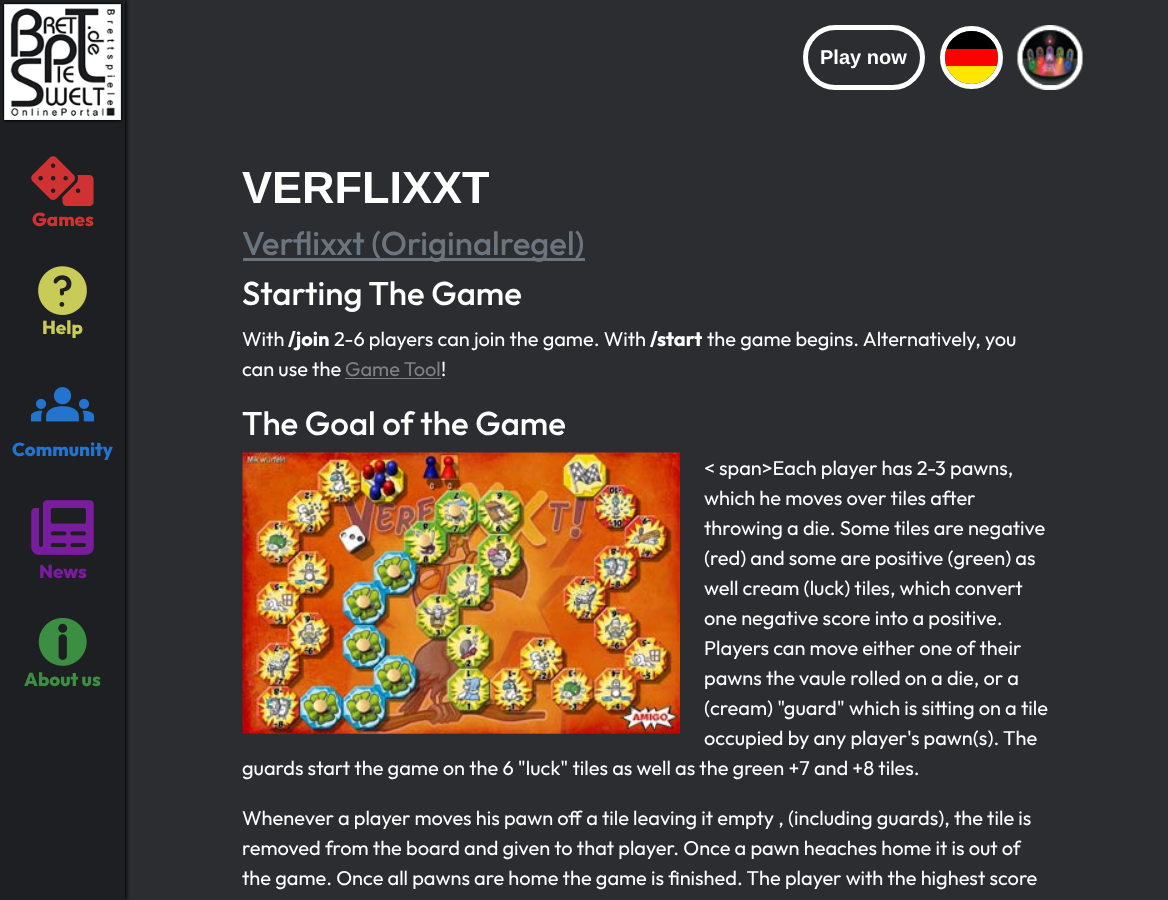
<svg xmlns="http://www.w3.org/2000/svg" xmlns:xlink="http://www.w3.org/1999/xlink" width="1168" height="900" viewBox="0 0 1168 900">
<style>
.cls-1{font:800 18.75px Outfit;fill:#d03234}
.cls-2{font:800 18.75px Outfit;fill:#c8cb58}
.cls-3{font:800 18.75px Outfit;fill:#2374ce}
.cls-4{font:800 18.75px Outfit;fill:#7a1c9e}
.cls-5{font:800 18.75px Outfit;fill:#3c8e43}
.cls-6{font:bold 20px Liberation Sans;fill:#ffffff}
.cls-7{font:bold 45px Liberation Sans;fill:#ffffff}
.cls-8{font:500 33px Outfit;fill:#6c757d}
.cls-9{font:500 33px Outfit;fill:#ffffff}
.cls-10{font:20px Outfit;fill:#ffffff}
.cls-11{font:bold 20px Outfit;fill:#ffffff}
.cls-12{font:20px Outfit;fill:#808080}
</style>
<defs>
<clipPath id="clip1"><rect x="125" y="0" width="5" height="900"/></clipPath>
<clipPath id="clip2"><rect x="945" y="31" width="53" height="53" rx="26.5"/></clipPath>
</defs>
<rect width="100%" height="100%" fill="#2b2d31"/>
<rect fill="#000000" filter="blur(2.5px)" x="0" y="0" width="125" height="900"/>
<rect fill="#1e1f22" x="0" y="0" width="125" height="900"/>
<g clip-path="url(#clip1)">
<rect fill="#000000" filter="blur(2.5px)" x="0" y="0" width="125" height="900"/>
</g>
<image xlink:href="image0.png" x="2" y="2" width="121" height="121"/>
<image xlink:href="image1.png" x="31" y="156" width="63" height="50"/>
<image xlink:href="image2.png" x="38" y="266" width="49" height="49"/>
<image xlink:href="image3.png" x="31" y="387" width="63" height="35"/>
<image xlink:href="image4.png" x="31" y="500" width="63" height="55"/>
<image xlink:href="image5.png" x="38" y="617" width="49" height="49"/>
<rect fill="none" stroke="#ffffff" stroke-width="5" x="805.5" y="27.5" width="117" height="60" rx="30"/>
<circle fill="none" stroke="#ffffff" stroke-width="5" cx="971.5" cy="57.5" r="29"/>
<g clip-path="url(#clip2)">
<rect fill="#ffe600" x="946" y="66" width="51" height="18"/>
<rect fill="#000000" x="946" y="31" width="51" height="18"/>
<rect fill="#ff0000" x="945" y="49" width="53" height="17"/>
</g>
<image xlink:href="image6.png" x="1017" y="25" width="66" height="65"/>
<rect fill="#6c757d" x="243" y="258" width="342" height="3"/>
<rect fill="#808080" x="345" y="378" width="96" height="1"/>
<image xlink:href="image7.png" x="242" y="452" width="438" height="282"/>
<text class="cls-1" x="32" y="226">Games</text>
<text class="cls-2" x="42" y="334">Help</text>
<text class="cls-3" x="12" y="456">Community</text>
<text class="cls-4" x="39" y="578">News</text>
<text class="cls-5" x="24" y="686">About us</text>
<text class="cls-6" x="820" y="64">Play now</text>
<text class="cls-7" x="242" y="203">VERFLIXXT</text>
<text class="cls-8" x="242" y="255">Verflixxt (Originalregel)</text>
<text class="cls-9" x="242" y="305">Starting The Game</text>
<text class="cls-10" x="242" y="346">With</text>
<text class="cls-11" x="288" y="346">/join</text>
<text class="cls-10" x="334" y="346">2-6 players can join the game. With</text>
<text class="cls-11" x="650" y="346">/start</text>
<text class="cls-10" x="707" y="346">the game begins. Alternatively, you</text>
<text class="cls-10" x="242" y="376">can use the</text>
<text class="cls-12" x="345" y="376">Game Tool</text>
<text class="cls-10" x="441" y="376">!</text>
<text class="cls-9" x="242" y="435">The Goal of the Game</text>
<text class="cls-10"><tspan x="704" y="475">&lt; span&gt;Each player has 2-3 pawns,</tspan><tspan x="704" y="505">which he moves over tiles after</tspan><tspan x="704" y="535">throwing a die. Some tiles are negative</tspan><tspan x="704" y="565">(red) and some are positive (green) as</tspan><tspan x="704" y="595">well cream (luck) tiles, which convert</tspan><tspan x="704" y="625">one negative score into a positive.</tspan><tspan x="704" y="655">Players can move either one of their</tspan><tspan x="704" y="685">pawns the vaule rolled on a die, or a</tspan><tspan x="704" y="715">(cream) "guard" which is sitting on a tile</tspan><tspan x="704" y="745">occupied by any player's pawn(s). The</tspan></text>
<text class="cls-10" x="242" y="775">guards start the game on the 6 "luck" tiles as well as the green +7 and +8 tiles.</text>
<text class="cls-10"><tspan x="242" y="825">Whenever a player moves his pawn off a tile leaving it empty , (including guards), the tile is</tspan><tspan x="242" y="855">removed from the board and given to that player. Once a pawn heaches home it is out of</tspan><tspan x="242" y="885">the game. Once all pawns are home the game is finished. The player with the highest score</tspan></text>
</svg>
